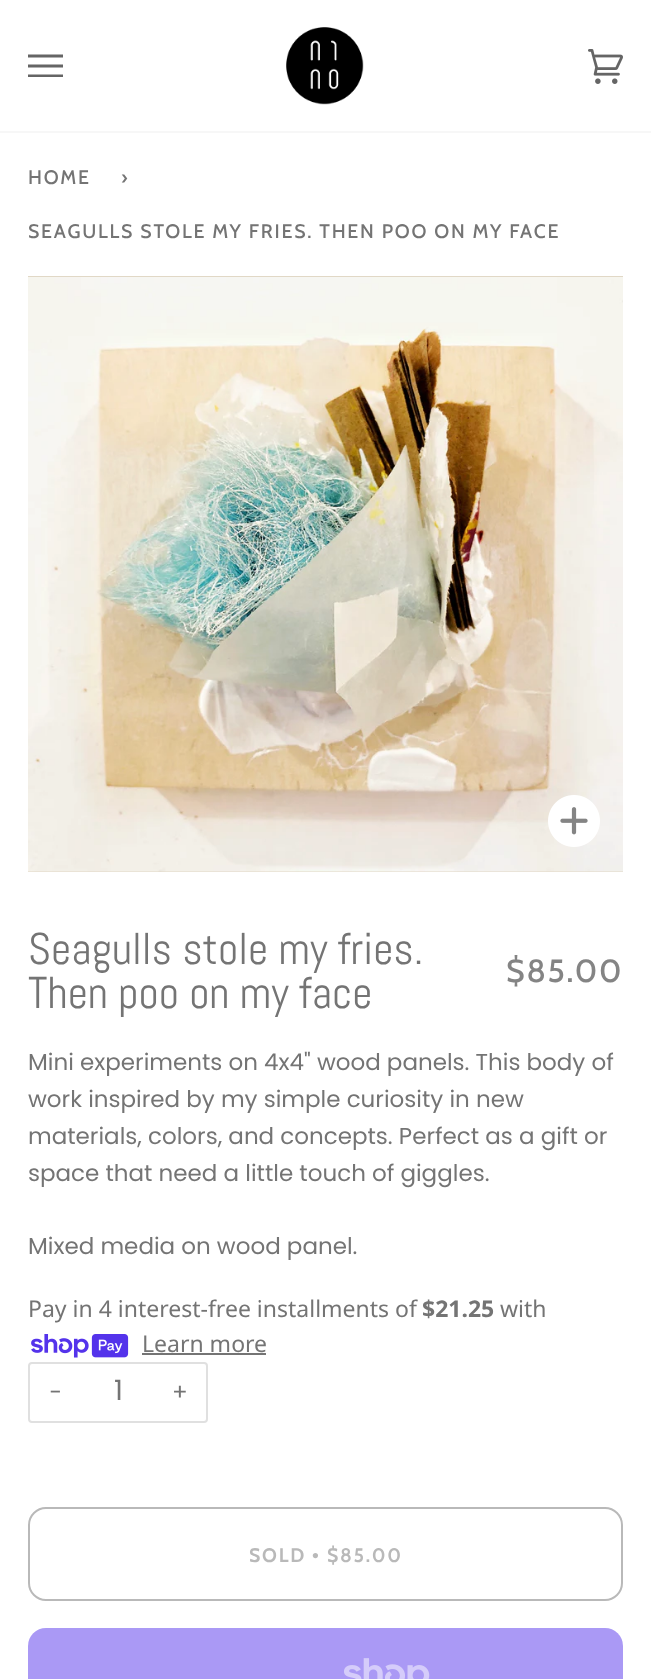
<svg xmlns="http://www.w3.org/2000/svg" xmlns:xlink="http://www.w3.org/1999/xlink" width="651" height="1679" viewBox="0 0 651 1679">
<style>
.cls-1{font:500 19.5px Cabin;letter-spacing:1.75px;fill:#747474}
.cls-2{font:44.5px Abel;fill:#747474}
.cls-3{font:500 32px Cabin;letter-spacing:1.75px;fill:#848484}
.cls-4{font:23px Poppins;fill:#747474}
.cls-5{font:23px Noto Sans;fill:#747474}
.cls-6{font:bold 23px Noto Sans;fill:#747474}
.cls-7{font:28px Poppins;fill:#747474}
.cls-8{font:bold 19.5px Cabin;letter-spacing:1.75px;fill:#b9b9b9}
.cls-9{font:bold 19.5px Liberation Serif;letter-spacing:1.75px;fill:#b9b9b9}
</style>
<rect width="100%" height="100%" fill="#ffffff"/>
<rect fill="#f7f7f7" x="0" y="131" width="651" height="2"/>
<path fill="#656565" d="M28 54.5H63V57.5H28ZM28 64.5H63V67.5H28ZM28 74.5H63V77H28Z"/>
<image xlink:href="image0.png" x="286" y="27" width="78" height="78"/>
<image xlink:href="image1.png" x="588" y="49" width="35" height="35"/>
<rect fill="#e1d8c6" x="28" y="276" width="595" height="596"/>
<image xlink:href="image2.png" x="28" y="277" width="595" height="595"/>
<image xlink:href="image3.png" x="548" y="795" width="52" height="52"/>
<image xlink:href="image4.png" x="31" y="1334" width="98" height="24"/>
<rect fill="#747474" x="142" y="1353" width="124" height="2"/>
<rect fill="none" stroke="#e0e0e0" stroke-width="2" x="29" y="1363" width="178" height="59" rx="3"/>
<rect fill="none" stroke="#b9b9b9" stroke-width="2" x="29" y="1508" width="593" height="92" rx="17"/>
<rect fill="#aa99f5" x="28" y="1628" width="595" height="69" rx="18"/>
<image xlink:href="image5.png" x="344" y="1658" width="86" height="21"/>
<text class="cls-1" x="28" y="184">HOME</text>
<text class="cls-1" x="121" y="184">›</text>
<text class="cls-1" x="28" y="238">SEAGULLS STOLE MY FRIES. THEN POO ON MY FACE</text>
<text class="cls-2"><tspan x="28" y="964">Seagulls stole my fries.</tspan><tspan x="28" y="1008">Then poo on my face</tspan></text>
<text class="cls-3" x="506" y="982">$85.00</text>
<text class="cls-4"><tspan x="28" y="1070">Mini experiments on 4x4" wood panels. This body of</tspan><tspan x="28" y="1107">work inspired by my simple curiosity in new</tspan><tspan x="28" y="1144">materials, colors, and concepts. Perfect as a gift or</tspan><tspan x="28" y="1181">space that need a little touch of giggles.</tspan></text>
<text class="cls-4" x="28" y="1254">Mixed media on wood panel.</text>
<text class="cls-5" x="28" y="1317">Pay in 4 interest-free installments of</text>
<text class="cls-6" x="422" y="1317">$21.25</text>
<text class="cls-5" x="500" y="1317">with</text>
<text class="cls-5" x="142" y="1352">Learn more</text>
<text class="cls-4" x="49" y="1400">−</text>
<text class="cls-7" x="114" y="1400">1</text>
<text class="cls-4" x="172" y="1400">+</text>
<text class="cls-8" x="249" y="1562">SOLD</text>
<text class="cls-9" x="312" y="1562">•</text>
<text class="cls-8" x="327" y="1562">$85.00</text>
</svg>
